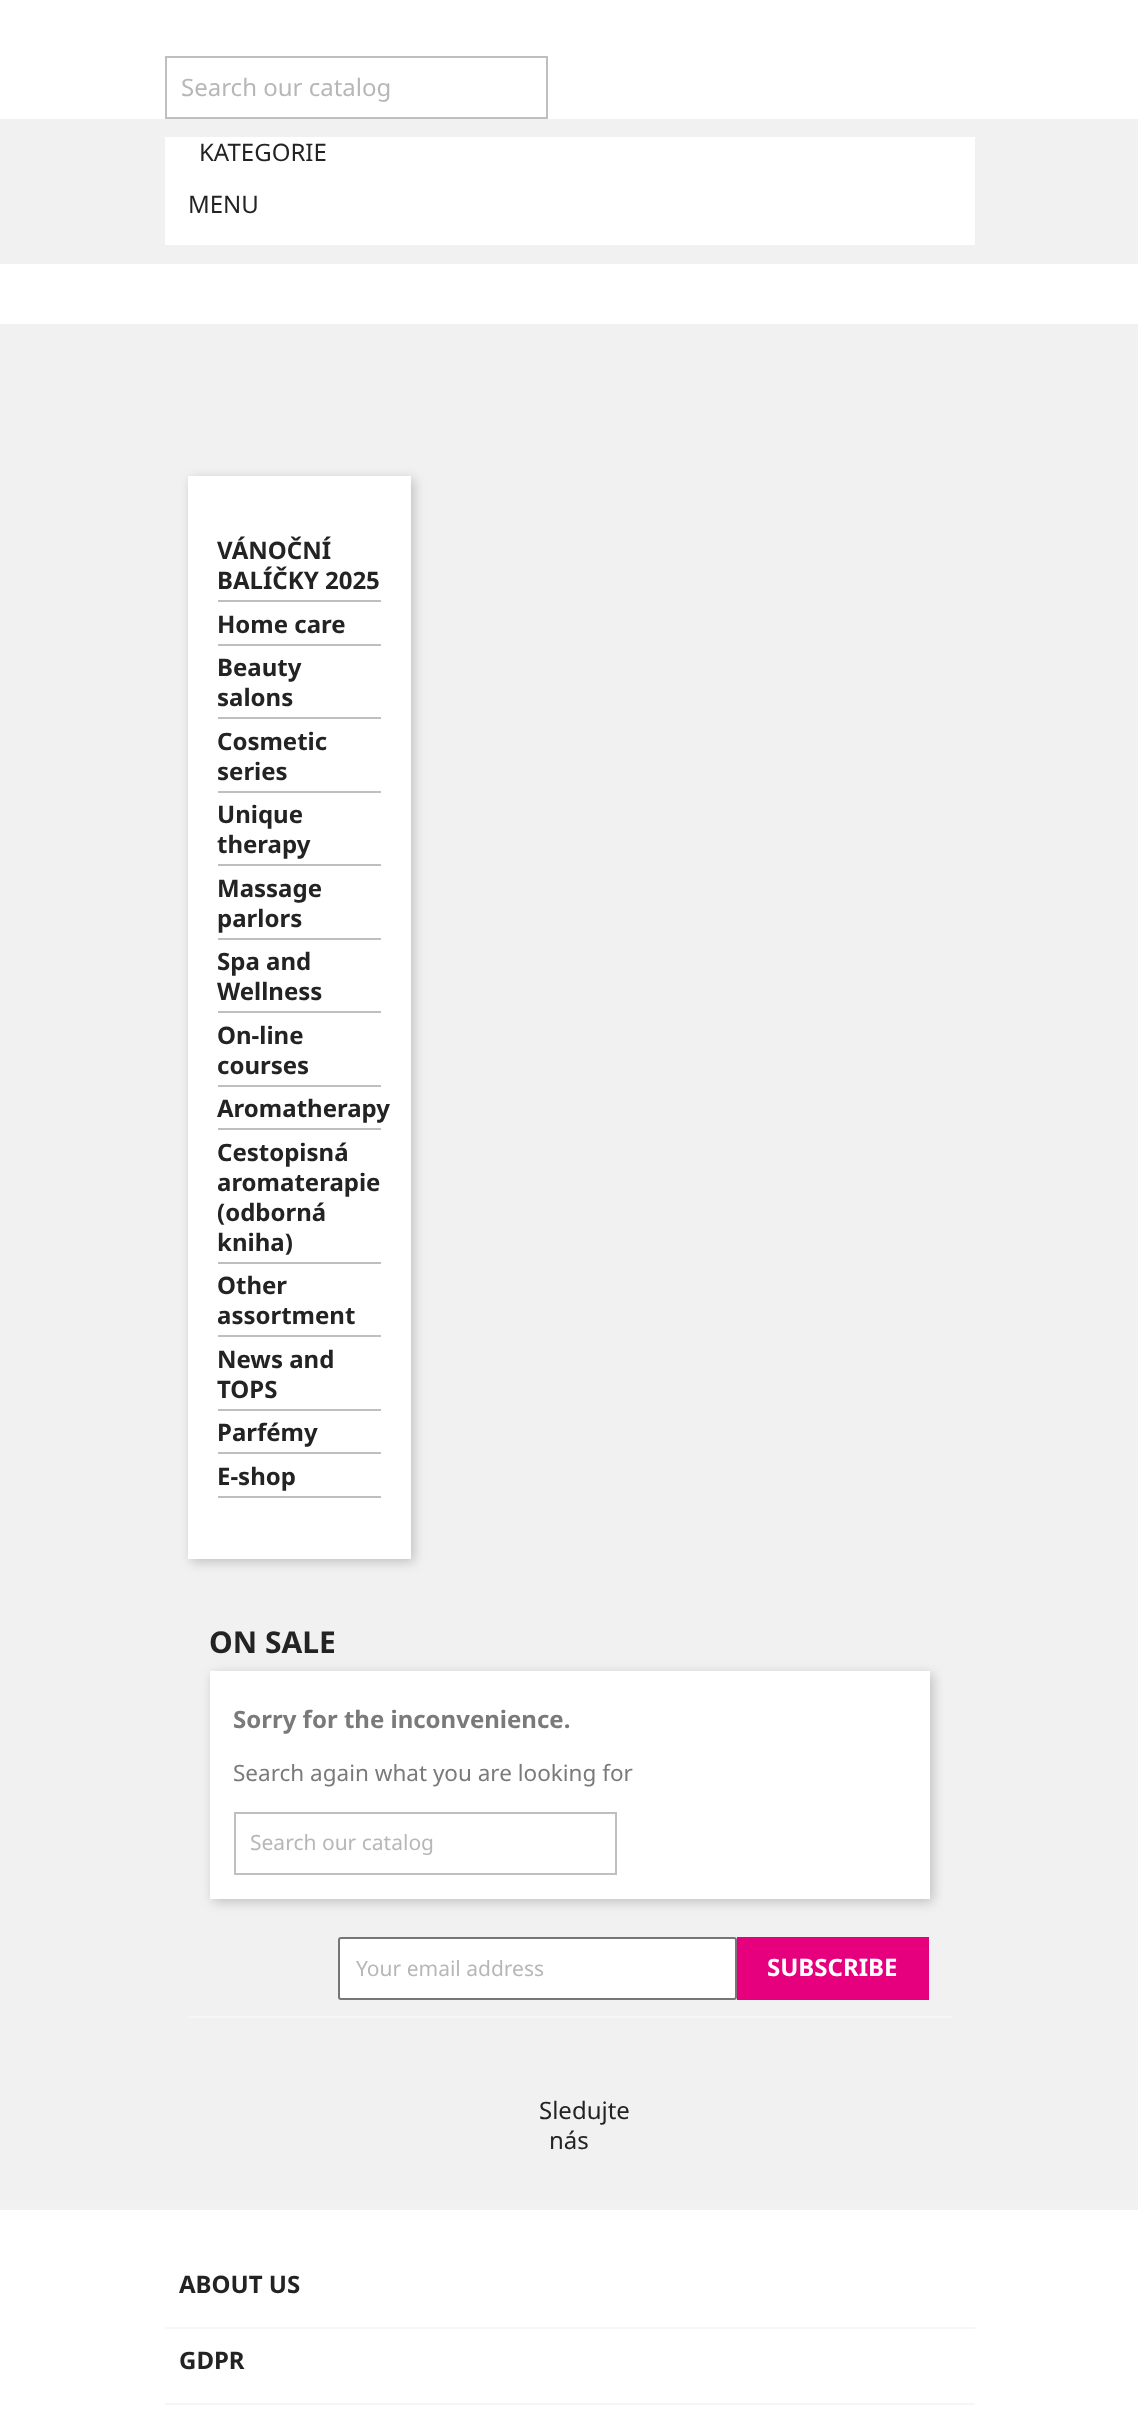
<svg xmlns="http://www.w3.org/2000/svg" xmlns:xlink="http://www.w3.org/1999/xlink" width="1138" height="2417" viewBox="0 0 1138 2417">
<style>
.cls-1{font:24px Noto Sans;fill:#b7b7b7}
.cls-2{font:24px Noto Sans;fill:#232323}
.cls-3{font:bold 24px Noto Sans;fill:#232323}
.cls-4{font:bold 30px Noto Sans;fill:#232323}
.cls-5{font:bold 24px Noto Sans;fill:#7a7a7a}
.cls-6{font:22.5px Noto Sans;fill:#7a7a7a}
.cls-7{font:21px Noto Sans;fill:#b7b7b7}
.cls-8{font:bold 24px Noto Sans;fill:#ffffff}
</style>
<rect width="100%" height="100%" fill="#ffffff"/>
<rect fill="#f1f1f1" x="0" y="119" width="1138" height="145"/>
<rect fill="none" stroke="#bfbfbf" stroke-width="2" x="166" y="57" width="381" height="61"/>
<rect fill="#ffffff" x="165" y="137" width="810" height="108"/>
<rect fill="#f1f1f1" x="0" y="324" width="1138" height="1886"/>
<rect fill="#000000" fill-opacity="0.2" filter="blur(6px)" x="191" y="479" width="223" height="1083"/>
<rect fill="#ffffff" x="188" y="476" width="223" height="1083"/>
<rect fill="#bfbfbf" x="218" y="600" width="163" height="2"/>
<rect fill="#bfbfbf" x="218" y="644" width="163" height="2"/>
<rect fill="#bfbfbf" x="218" y="717" width="163" height="2"/>
<rect fill="#bfbfbf" x="218" y="791" width="163" height="2"/>
<rect fill="#bfbfbf" x="218" y="864" width="163" height="2"/>
<rect fill="#bfbfbf" x="218" y="938" width="163" height="2"/>
<rect fill="#bfbfbf" x="218" y="1011" width="163" height="2"/>
<rect fill="#bfbfbf" x="218" y="1085" width="163" height="2"/>
<rect fill="#bfbfbf" x="218" y="1128" width="163" height="2"/>
<rect fill="#bfbfbf" x="218" y="1262" width="163" height="2"/>
<rect fill="#bfbfbf" x="218" y="1335" width="163" height="2"/>
<rect fill="#bfbfbf" x="218" y="1409" width="163" height="2"/>
<rect fill="#bfbfbf" x="218" y="1452" width="163" height="2"/>
<rect fill="#bfbfbf" x="218" y="1496" width="163" height="2"/>
<rect fill="#000000" fill-opacity="0.2" filter="blur(6px)" x="213" y="1674" width="720" height="228"/>
<rect fill="#ffffff" x="210" y="1671" width="720" height="228"/>
<rect fill="none" stroke="#bfbfbf" stroke-width="2" x="235" y="1813" width="381" height="61"/>
<rect fill="#f6f6f6" x="188" y="2016" width="765" height="2"/>
<rect fill="#ffffff" stroke="#767676" stroke-width="2" x="339" y="1938" width="397" height="61" rx="2"/>
<rect fill="#e6007e" x="737" y="1937" width="192" height="63"/>
<rect fill="#f6f6f6" x="165" y="2327" width="810" height="2"/>
<rect fill="#f6f6f6" x="165" y="2403" width="810" height="2"/>
<text class="cls-1" x="181" y="96">Search our catalog</text>
<text class="cls-2" x="199" y="161">KATEGORIE</text>
<text class="cls-2" x="188" y="213">MENU</text>
<text class="cls-3"><tspan x="217" y="559">VÁNOČNÍ</tspan><tspan x="217" y="589">BALÍČKY 2025</tspan><tspan x="217" y="633">Home care</tspan><tspan x="217" y="676">Beauty</tspan><tspan x="217" y="706">salons</tspan><tspan x="217" y="750">Cosmetic</tspan><tspan x="217" y="780">series</tspan><tspan x="217" y="823">Unique</tspan><tspan x="217" y="853">therapy</tspan><tspan x="217" y="897">Massage</tspan><tspan x="217" y="927">parlors</tspan><tspan x="217" y="970">Spa and</tspan><tspan x="217" y="1000">Wellness</tspan><tspan x="217" y="1044">On-line</tspan><tspan x="217" y="1074">courses</tspan><tspan x="217" y="1117">Aromatherapy</tspan><tspan x="217" y="1161">Cestopisná</tspan><tspan x="217" y="1191">aromaterapie</tspan><tspan x="217" y="1221">(odborná</tspan><tspan x="217" y="1251">kniha)</tspan><tspan x="217" y="1294">Other</tspan><tspan x="217" y="1324">assortment</tspan><tspan x="217" y="1368">News and</tspan><tspan x="217" y="1398">TOPS</tspan><tspan x="217" y="1441">Parfémy</tspan><tspan x="217" y="1485">E-shop</tspan></text>
<text class="cls-4" x="209" y="1653">ON SALE</text>
<text class="cls-5" x="233" y="1728">Sorry for the inconvenience.</text>
<text class="cls-6" x="233" y="1781">Search again what you are looking for</text>
<text class="cls-7" x="250" y="1850">Search our catalog</text>
<text class="cls-7" x="356" y="1976">Your email address</text>
<text class="cls-8" x="767" y="1976">SUBSCRIBE</text>
<text class="cls-2" x="539" y="2119">Sledujte</text>
<text class="cls-2" x="549" y="2149">nás</text>
<text class="cls-3" x="179" y="2293">ABOUT US</text>
<text class="cls-3" x="179" y="2369">GDPR</text>
</svg>
